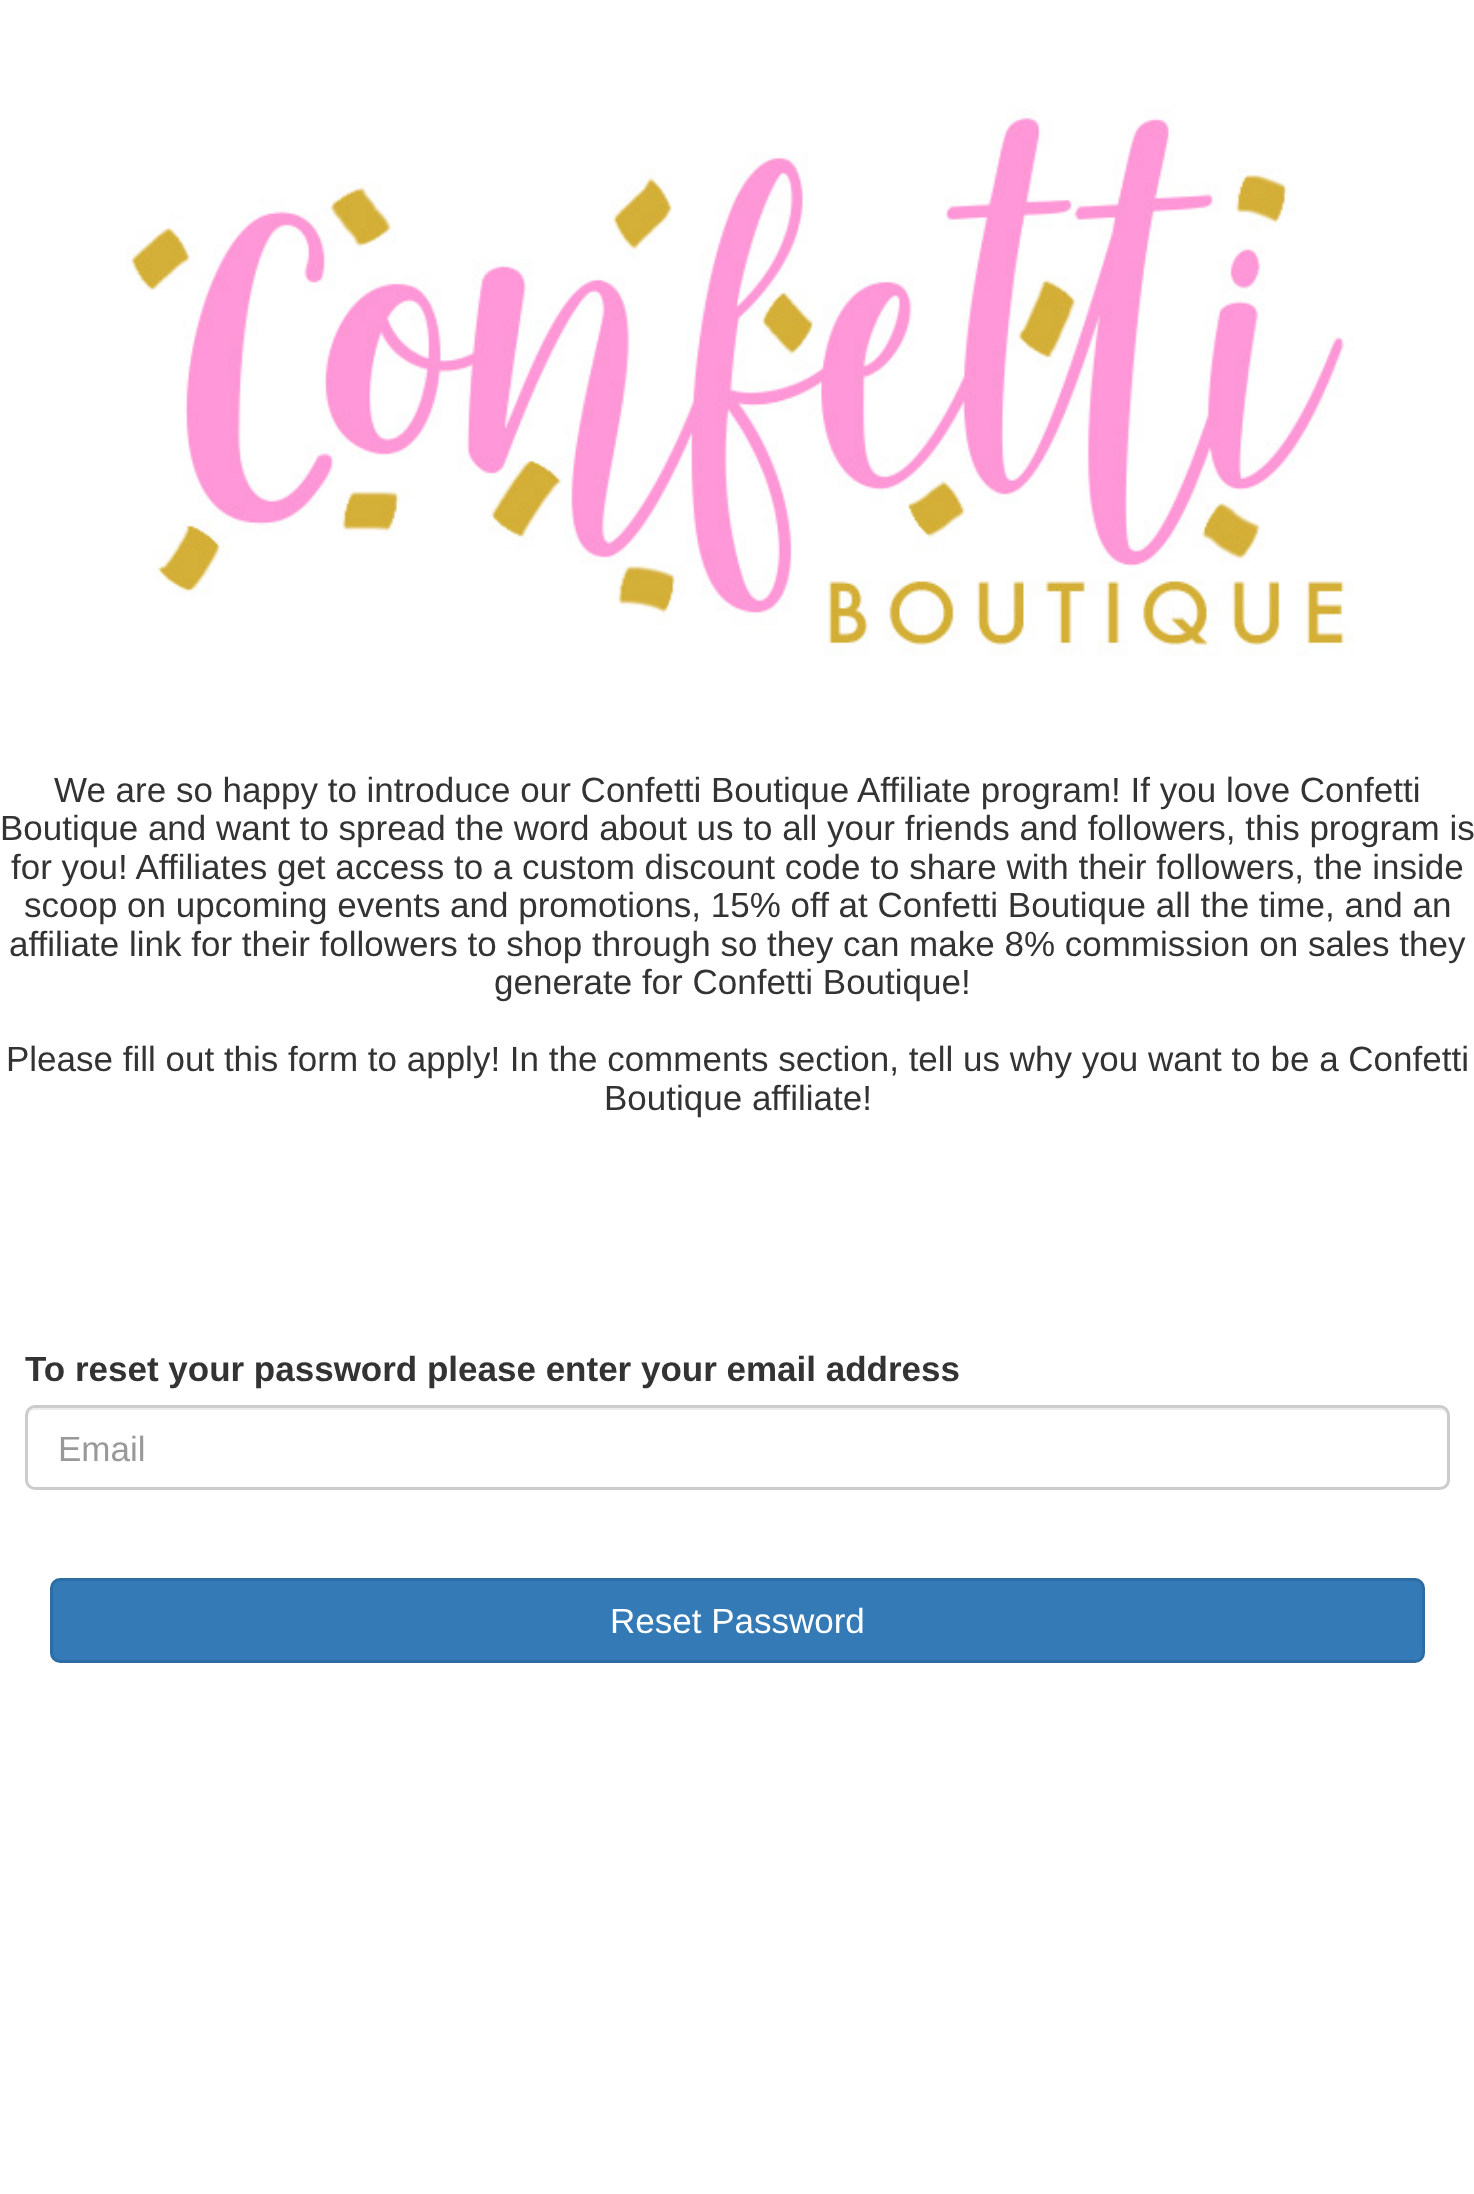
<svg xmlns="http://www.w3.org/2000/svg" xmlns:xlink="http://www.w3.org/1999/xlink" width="1474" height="2194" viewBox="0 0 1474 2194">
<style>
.cls-1{font:35px Liberation Sans;fill:#333333}
.cls-2{font:bold 35px Liberation Sans;fill:#333333}
.cls-3{font:35px Liberation Sans;fill:#999999}
.cls-4{font:35px Liberation Sans;fill:#ffffff}
</style>
<rect width="100%" height="100%" fill="#ffffff"/>
<image xlink:href="image0.png" x="125" y="107" width="1230" height="549"/>
<path fill="#ececec" d="M35 1410H1440C1444 1410 1448 1413 1448 1418V1416C1448 1412 1444 1408 1440 1408H36C32 1408 28 1412 28 1416V1418C28 1413 31 1410 35 1410Z"/>
<rect fill="none" stroke="#cccccc" stroke-width="3" x="26.5" y="1406.5" width="1422" height="82" rx="8.5"/>
<rect fill="#337ab7" stroke="#2e6da4" stroke-width="3" x="51.5" y="1579.5" width="1372" height="82" rx="8.5"/>
<text class="cls-1" x="54" y="802">We are so happy to introduce our Confetti Boutique Affiliate program! If you love Confetti</text>
<text class="cls-1" x="0" y="840">Boutique and want to spread the word about us to all your friends and followers, this program is</text>
<text class="cls-1" x="11" y="879">for you! Affiliates get access to a custom discount code to share with their followers, the inside</text>
<text class="cls-1" x="24" y="917">scoop on upcoming events and promotions, 15% off at Confetti Boutique all the time, and an</text>
<text class="cls-1" x="9" y="956">affiliate link for their followers to shop through so they can make 8% commission on sales they</text>
<text class="cls-1" x="494" y="994">generate for Confetti Boutique!</text>
<text class="cls-1" x="6" y="1071">Please fill out this form to apply! In the comments section, tell us why you want to be a Confetti</text>
<text class="cls-1" x="604" y="1110">Boutique affiliate!</text>
<text class="cls-2" x="25" y="1381">To reset your password please enter your email address</text>
<text class="cls-3" x="58" y="1461">Email</text>
<text class="cls-4" x="610" y="1633">Reset Password</text>
</svg>
